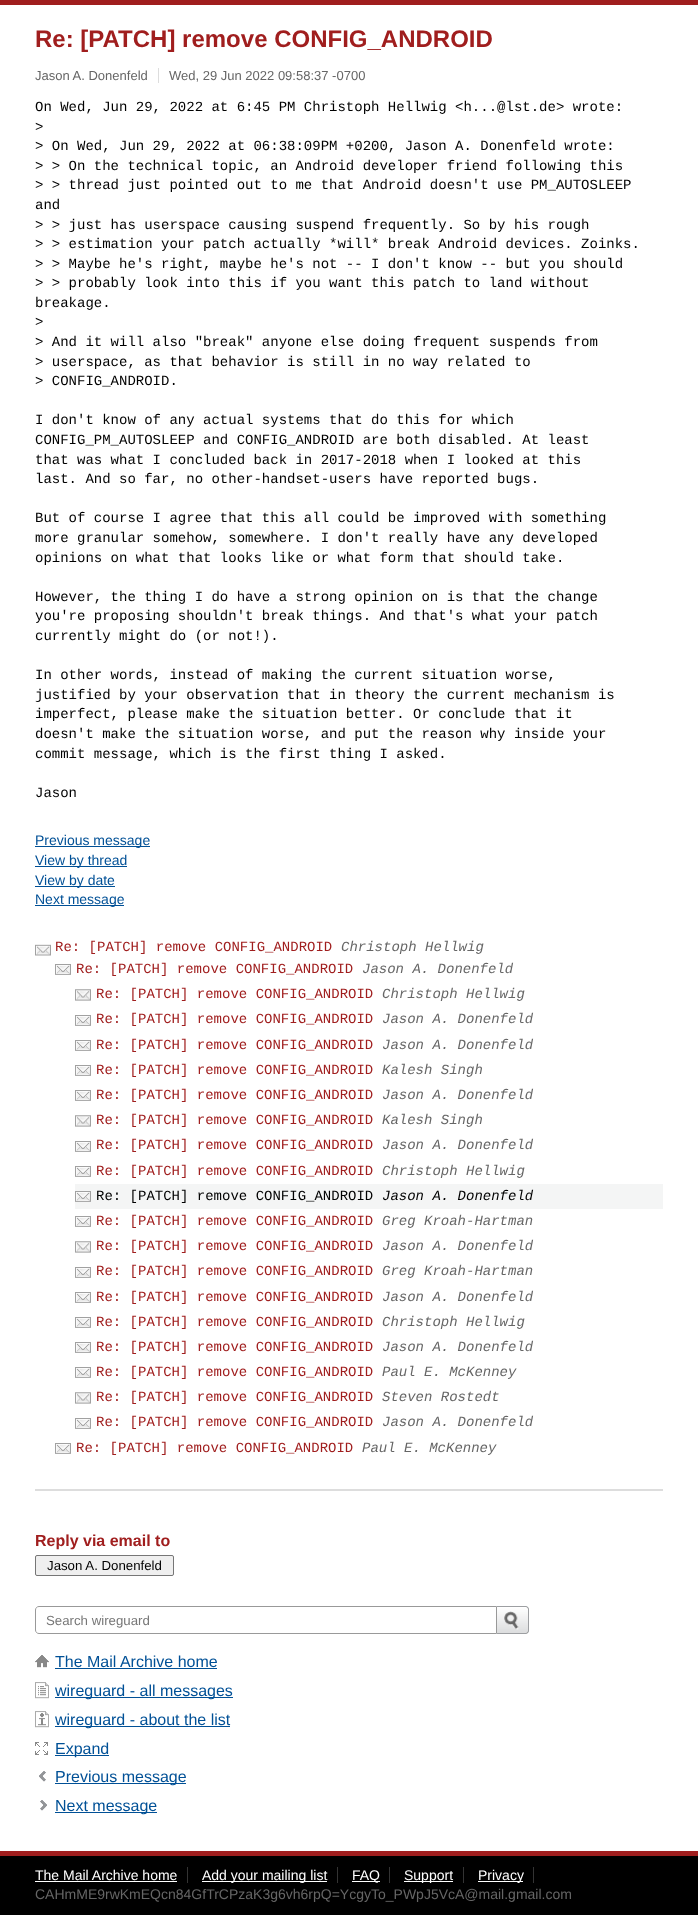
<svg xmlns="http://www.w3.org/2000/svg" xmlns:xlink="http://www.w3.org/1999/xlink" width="698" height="1919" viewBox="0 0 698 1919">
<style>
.cls-1{font:bold 24px Liberation Sans;fill:#a01e1e}
.cls-2{font:13px Liberation Sans;fill:#666666}
.cls-3{font:14px Liberation Mono;fill:#000000}
.cls-4{font:14px Liberation Sans;fill:#005096}
.cls-5{font:14px Liberation Mono;fill:#a01e1e}
.cls-6{font:italic 14px Liberation Mono;fill:#666666}
.cls-7{font:italic 14px Liberation Mono;fill:#000000}
.cls-8{font:bold 16px Liberation Sans;fill:#a01e1e}
.cls-9{font:13.25px Liberation Sans;fill:#000000}
.cls-10{font:13.25px Liberation Sans;fill:#777777}
.cls-11{font:16px Liberation Sans;fill:#005096}
.cls-12{font:14px Liberation Sans;fill:#ffffff}
.cls-13{font:14px Liberation Sans;fill:#666666}
</style>
<rect width="100%" height="100%" fill="#ffffff"/>
<rect fill="#a01e1e" x="0" y="0" width="698" height="5"/>
<rect fill="#dddddd" x="158" y="68" width="1" height="15"/>
<rect fill="#005096" x="35" y="846" width="115" height="1"/>
<rect fill="#005096" x="35" y="866" width="92" height="1"/>
<rect fill="#005096" x="35" y="886" width="80" height="1"/>
<rect fill="#005096" x="35" y="905" width="89" height="1"/>
<image xlink:href="image0.png" x="35" y="944" width="16" height="12"/>
<image xlink:href="image1.png" x="55" y="964" width="16" height="11"/>
<image xlink:href="image2.png" x="75" y="989" width="16" height="12"/>
<image xlink:href="image1.png" x="75" y="1015" width="16" height="11"/>
<image xlink:href="image1.png" x="75" y="1040" width="16" height="11"/>
<image xlink:href="image1.png" x="75" y="1065" width="16" height="11"/>
<image xlink:href="image1.png" x="75" y="1090" width="16" height="11"/>
<image xlink:href="image2.png" x="75" y="1115" width="16" height="12"/>
<image xlink:href="image1.png" x="75" y="1141" width="16" height="11"/>
<image xlink:href="image1.png" x="75" y="1166" width="16" height="11"/>
<rect fill="#f4f5f5" x="75" y="1184" width="588" height="25"/>
<image xlink:href="image3.png" x="75" y="1191" width="16" height="11"/>
<image xlink:href="image1.png" x="75" y="1216" width="16" height="11"/>
<image xlink:href="image2.png" x="75" y="1241" width="16" height="12"/>
<image xlink:href="image1.png" x="75" y="1267" width="16" height="11"/>
<image xlink:href="image1.png" x="75" y="1292" width="16" height="11"/>
<image xlink:href="image1.png" x="75" y="1317" width="16" height="11"/>
<image xlink:href="image1.png" x="75" y="1342" width="16" height="11"/>
<image xlink:href="image1.png" x="75" y="1367" width="16" height="11"/>
<image xlink:href="image2.png" x="75" y="1392" width="16" height="12"/>
<image xlink:href="image1.png" x="75" y="1418" width="16" height="11"/>
<image xlink:href="image1.png" x="55" y="1443" width="16" height="11"/>
<rect fill="#dddddd" x="35" y="1489" width="628" height="2"/>
<rect fill="#efefef" stroke="#767676" x="35.5" y="1555.5" width="138" height="20" rx="1.5"/>
<path fill="none" stroke="#999999" d="M39 1606.5H496.5V1633.5H39C37 1633.5 35.5 1632 35.5 1630V1610C35.5 1608 37 1606.5 39 1606.5Z"/>
<image xlink:href="image4.png" x="497" y="1606" width="32" height="28"/>
<image xlink:href="image5.png" x="35" y="1655" width="14" height="13"/>
<rect fill="#005096" x="55" y="1668" width="162" height="1"/>
<image xlink:href="image6.png" x="35" y="1682" width="14" height="17"/>
<rect fill="#005096" x="55" y="1697" width="178" height="1"/>
<image xlink:href="image7.png" x="35" y="1711" width="14" height="17"/>
<rect fill="#005096" x="55" y="1726" width="175" height="1"/>
<image xlink:href="image8.png" x="35" y="1742" width="13" height="13"/>
<rect fill="#005096" x="55" y="1755" width="54" height="1"/>
<image xlink:href="image9.png" x="39" y="1771" width="7" height="11"/>
<rect fill="#005096" x="55" y="1783" width="131" height="1"/>
<image xlink:href="image10.png" x="40" y="1800" width="7" height="11"/>
<rect fill="#005096" x="55" y="1812" width="102" height="1"/>
<rect fill="#000000" x="0" y="1856" width="698" height="59"/>
<rect fill="#a01e1e" x="0" y="1851" width="698" height="5"/>
<rect fill="#333333" x="187" y="1867" width="1" height="16"/>
<rect fill="#ffffff" x="35" y="1881" width="142" height="1"/>
<rect fill="#333333" x="337" y="1867" width="1" height="16"/>
<rect fill="#ffffff" x="202" y="1881" width="125" height="1"/>
<rect fill="#333333" x="389" y="1867" width="1" height="16"/>
<rect fill="#ffffff" x="352" y="1881" width="28" height="1"/>
<rect fill="#333333" x="463" y="1867" width="1" height="16"/>
<rect fill="#ffffff" x="404" y="1881" width="49" height="1"/>
<rect fill="#333333" x="533" y="1867" width="1" height="16"/>
<rect fill="#ffffff" x="478" y="1881" width="45" height="1"/>
<text class="cls-1" x="35" y="47">Re: [PATCH] remove CONFIG_ANDROID</text>
<text class="cls-2" x="35" y="80">Jason A. Donenfeld</text>
<text class="cls-2" x="169" y="80">Wed, 29 Jun 2022 09:58:37 -0700</text>
<text class="cls-3"><tspan x="35" y="111">On Wed, Jun 29, 2022 at 6:45 PM Christoph Hellwig &lt;h...@lst.de&gt; wrote:</tspan><tspan x="35" y="131">&gt;</tspan><tspan x="35" y="150">&gt; On Wed, Jun 29, 2022 at 06:38:09PM +0200, Jason A. Donenfeld wrote:</tspan><tspan x="35" y="170">&gt; &gt; On the technical topic, an Android developer friend following this</tspan><tspan x="35" y="189">&gt; &gt; thread just pointed out to me that Android doesn't use PM_AUTOSLEEP</tspan><tspan x="35" y="209">and</tspan><tspan x="35" y="229">&gt; &gt; just has userspace causing suspend frequently. So by his rough</tspan><tspan x="35" y="248">&gt; &gt; estimation your patch actually *will* break Android devices. Zoinks.</tspan><tspan x="35" y="268">&gt; &gt; Maybe he's right, maybe he's not -- I don't know -- but you should</tspan><tspan x="35" y="287">&gt; &gt; probably look into this if you want this patch to land without</tspan><tspan x="35" y="307">breakage.</tspan><tspan x="35" y="326">&gt;</tspan><tspan x="35" y="346">&gt; And it will also "break" anyone else doing frequent suspends from</tspan><tspan x="35" y="366">&gt; userspace, as that behavior is still in no way related to</tspan><tspan x="35" y="385">&gt; CONFIG_ANDROID.</tspan></text>
<text class="cls-3"><tspan x="35" y="424">I don't know of any actual systems that do this for which</tspan><tspan x="35" y="444">CONFIG_PM_AUTOSLEEP and CONFIG_ANDROID are both disabled. At least</tspan><tspan x="35" y="464">that was what I concluded back in 2017-2018 when I looked at this</tspan><tspan x="35" y="483">last. And so far, no other-handset-users have reported bugs.</tspan></text>
<text class="cls-3"><tspan x="35" y="522">But of course I agree that this all could be improved with something</tspan><tspan x="35" y="542">more granular somehow, somewhere. I don't really have any developed</tspan><tspan x="35" y="562">opinions on what that looks like or what form that should take.</tspan></text>
<text class="cls-3"><tspan x="35" y="601">However, the thing I do have a strong opinion on is that the change</tspan><tspan x="35" y="620">you're proposing shouldn't break things. And that's what your patch</tspan><tspan x="35" y="640">currently might do (or not!).</tspan></text>
<text class="cls-3"><tspan x="35" y="679">In other words, instead of making the current situation worse,</tspan><tspan x="35" y="699">justified by your observation that in theory the current mechanism is</tspan><tspan x="35" y="718">imperfect, please make the situation better. Or conclude that it</tspan><tspan x="35" y="738">doesn't make the situation worse, and put the reason why inside your</tspan><tspan x="35" y="758">commit message, which is the first thing I asked.</tspan></text>
<text class="cls-3" x="35" y="797">Jason</text>
<text class="cls-4"><tspan x="35" y="845">Previous message</tspan><tspan x="35" y="865">View by thread</tspan><tspan x="35" y="885">View by date</tspan><tspan x="35" y="904">Next message</tspan></text>
<text class="cls-5" x="55" y="951">Re: [PATCH] remove CONFIG_ANDROID</text>
<text class="cls-6" x="341" y="951">Christoph Hellwig</text>
<text class="cls-5" x="76" y="973">Re: [PATCH] remove CONFIG_ANDROID</text>
<text class="cls-6" x="362" y="973">Jason A. Donenfeld</text>
<text class="cls-5" x="96" y="998">Re: [PATCH] remove CONFIG_ANDROID</text>
<text class="cls-6" x="382" y="998">Christoph Hellwig</text>
<text class="cls-5" x="96" y="1023">Re: [PATCH] remove CONFIG_ANDROID</text>
<text class="cls-6" x="382" y="1023">Jason A. Donenfeld</text>
<text class="cls-5" x="96" y="1049">Re: [PATCH] remove CONFIG_ANDROID</text>
<text class="cls-6" x="382" y="1049">Jason A. Donenfeld</text>
<text class="cls-5" x="96" y="1074">Re: [PATCH] remove CONFIG_ANDROID</text>
<text class="cls-6" x="382" y="1074">Kalesh Singh</text>
<text class="cls-5" x="96" y="1099">Re: [PATCH] remove CONFIG_ANDROID</text>
<text class="cls-6" x="382" y="1099">Jason A. Donenfeld</text>
<text class="cls-5" x="96" y="1124">Re: [PATCH] remove CONFIG_ANDROID</text>
<text class="cls-6" x="382" y="1124">Kalesh Singh</text>
<text class="cls-5" x="96" y="1149">Re: [PATCH] remove CONFIG_ANDROID</text>
<text class="cls-6" x="382" y="1149">Jason A. Donenfeld</text>
<text class="cls-5" x="96" y="1175">Re: [PATCH] remove CONFIG_ANDROID</text>
<text class="cls-6" x="382" y="1175">Christoph Hellwig</text>
<text class="cls-3" x="96" y="1200">Re: [PATCH] remove CONFIG_ANDROID</text>
<text class="cls-7" x="382" y="1200">Jason A. Donenfeld</text>
<text class="cls-5" x="96" y="1225">Re: [PATCH] remove CONFIG_ANDROID</text>
<text class="cls-6" x="382" y="1225">Greg Kroah-Hartman</text>
<text class="cls-5" x="96" y="1250">Re: [PATCH] remove CONFIG_ANDROID</text>
<text class="cls-6" x="382" y="1250">Jason A. Donenfeld</text>
<text class="cls-5" x="96" y="1275">Re: [PATCH] remove CONFIG_ANDROID</text>
<text class="cls-6" x="382" y="1275">Greg Kroah-Hartman</text>
<text class="cls-5" x="96" y="1301">Re: [PATCH] remove CONFIG_ANDROID</text>
<text class="cls-6" x="382" y="1301">Jason A. Donenfeld</text>
<text class="cls-5" x="96" y="1326">Re: [PATCH] remove CONFIG_ANDROID</text>
<text class="cls-6" x="382" y="1326">Christoph Hellwig</text>
<text class="cls-5" x="96" y="1351">Re: [PATCH] remove CONFIG_ANDROID</text>
<text class="cls-6" x="382" y="1351">Jason A. Donenfeld</text>
<text class="cls-5" x="96" y="1376">Re: [PATCH] remove CONFIG_ANDROID</text>
<text class="cls-6" x="382" y="1376">Paul E. McKenney</text>
<text class="cls-5" x="96" y="1401">Re: [PATCH] remove CONFIG_ANDROID</text>
<text class="cls-6" x="382" y="1401">Steven Rostedt</text>
<text class="cls-5" x="96" y="1426">Re: [PATCH] remove CONFIG_ANDROID</text>
<text class="cls-6" x="382" y="1426">Jason A. Donenfeld</text>
<text class="cls-5" x="76" y="1452">Re: [PATCH] remove CONFIG_ANDROID</text>
<text class="cls-6" x="362" y="1452">Paul E. McKenney</text>
<text class="cls-8" x="35" y="1546">Reply via email to</text>
<text class="cls-9" x="47" y="1570">Jason A. Donenfeld</text>
<text class="cls-10" x="46" y="1625">Search wireguard</text>
<text class="cls-11"><tspan x="55" y="1667">The Mail Archive home</tspan><tspan x="55" y="1696">wireguard - all messages</tspan><tspan x="55" y="1725">wireguard - about the list</tspan><tspan x="55" y="1754">Expand</tspan><tspan x="55" y="1782">Previous message</tspan><tspan x="55" y="1811">Next message</tspan></text>
<text class="cls-12" x="35" y="1880">The Mail Archive home</text>
<text class="cls-12" x="202" y="1880">Add your mailing list</text>
<text class="cls-12" x="352" y="1880">FAQ</text>
<text class="cls-12" x="404" y="1880">Support</text>
<text class="cls-12" x="478" y="1880">Privacy</text>
<text class="cls-13" x="35" y="1899">CAHmME9rwKmEQcn84GfTrCPzaK3g6vh6rpQ=YcgyTo_PWpJ5VcA@mail.gmail.com</text>
</svg>
